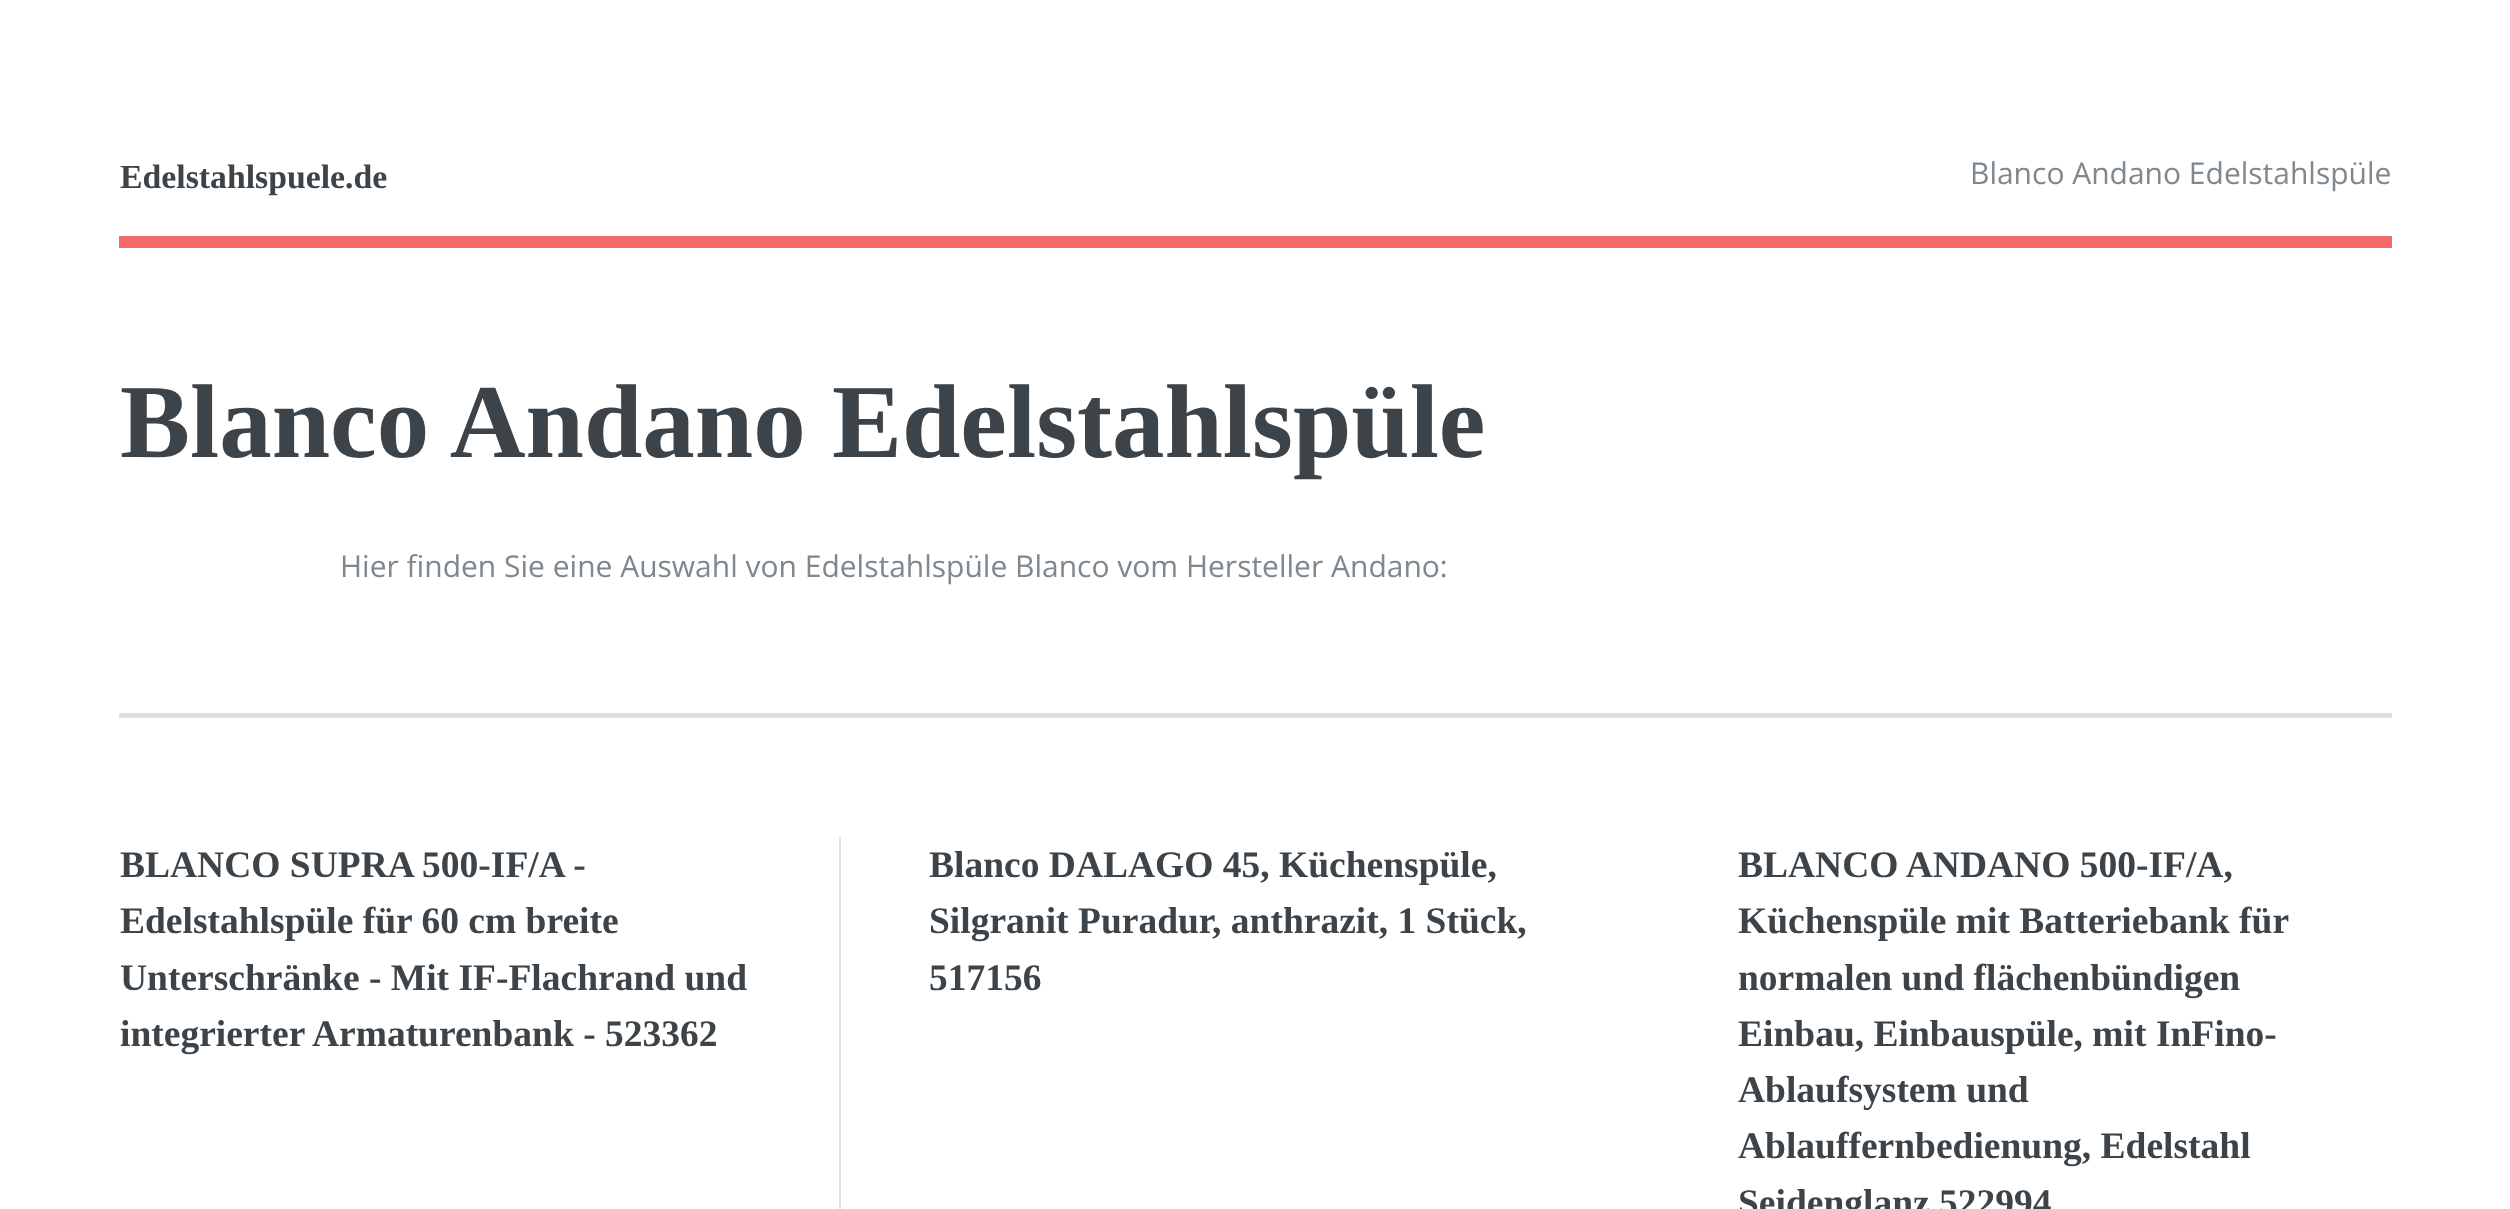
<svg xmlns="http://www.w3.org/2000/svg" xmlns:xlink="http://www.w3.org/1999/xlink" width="2510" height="1209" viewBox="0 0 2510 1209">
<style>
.cls-1{font:bold 33.75px Liberation Serif;fill:#3d4449}
.cls-2{font:30px Open Sans;fill:#7f888f}
.cls-3{font:bold 105px Liberation Serif;fill:#3d4449}
.cls-4{font:bold 37.5px Liberation Serif;fill:#3d4449}
</style>
<rect width="100%" height="100%" fill="#ffffff"/>
<rect fill="#f56a6a" x="119" y="236" width="2273" height="12"/>
<rect fill="#dde1e3" x="119" y="713" width="2273" height="5"/>
<rect fill="#dde1e3" x="839" y="837" width="2" height="372"/>
<text class="cls-1" x="120" y="188">Edelstahlspuele.de</text>
<text class="cls-2" x="1970" y="184">Blanco Andano Edelstahlspüle</text>
<text class="cls-3" x="120" y="457">Blanco Andano Edelstahlspüle</text>
<text class="cls-2" x="340" y="577">Hier finden Sie eine Auswahl von Edelstahlspüle Blanco vom Hersteller Andano:</text>
<text class="cls-4"><tspan x="120" y="877">BLANCO SUPRA 500-IF/A -</tspan><tspan x="120" y="933">Edelstahlspüle für 60 cm breite</tspan><tspan x="120" y="990">Unterschränke - Mit IF-Flachrand und</tspan><tspan x="120" y="1046">integrierter Armaturenbank - 523362</tspan></text>
<text class="cls-4"><tspan x="929" y="877">Blanco DALAGO 45, Küchenspüle,</tspan><tspan x="929" y="933">Silgranit Puradur, anthrazit, 1 Stück,</tspan><tspan x="929" y="990">517156</tspan></text>
<text class="cls-4"><tspan x="1738" y="877">BLANCO ANDANO 500-IF/A,</tspan><tspan x="1738" y="933">Küchenspüle mit Batteriebank für</tspan><tspan x="1738" y="990">normalen und flächenbündigen</tspan><tspan x="1738" y="1046">Einbau, Einbauspüle, mit InFino-</tspan><tspan x="1738" y="1102">Ablaufsystem und</tspan><tspan x="1738" y="1158">Ablauffernbedienung, Edelstahl</tspan><tspan x="1738" y="1215">Seidenglanz 522994</tspan></text>
</svg>
